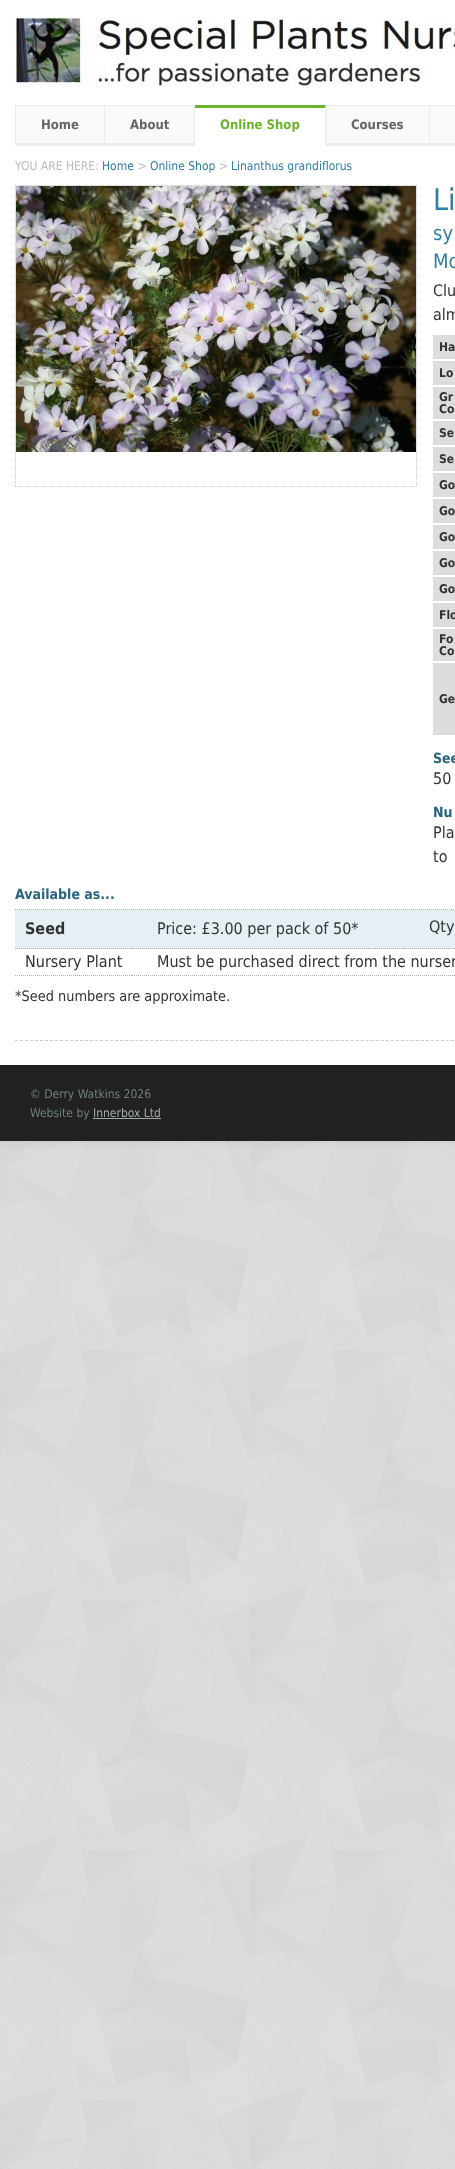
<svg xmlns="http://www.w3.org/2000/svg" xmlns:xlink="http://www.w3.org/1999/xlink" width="455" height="2169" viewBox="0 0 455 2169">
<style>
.cls-1{font:bold 13px DejaVu Sans;fill:#656565}
.cls-2{font:bold 13px DejaVu Sans;fill:#69b429}
.cls-3{font:12px DejaVu Sans;fill:#bbbbbb}
.cls-4{font:12px DejaVu Sans;fill:#2d7ea4}
.cls-5{font:30px DejaVu Sans;fill:#2d7ea4}
.cls-6{font:20px DejaVu Sans;fill:#2d7ea4}
.cls-7{font:16px DejaVu Sans;fill:#333333}
.cls-8{font:bold 12px DejaVu Sans;fill:#333333}
.cls-9{font:bold 14px DejaVu Sans;fill:#276581}
.cls-10{font:bold 16px DejaVu Sans;fill:#333333}
.cls-11{font:14.4px DejaVu Sans;fill:#333333}
.cls-12{font:12px DejaVu Sans;fill:#6c8180}
.cls-13{font:12px DejaVu Sans;fill:#a1abac}
</style>
<rect width="100%" height="100%" fill="#ffffff"/>
<image xlink:href="image0.png" x="0" y="1141" width="455" height="1028"/>
<rect fill="#000000" fill-opacity="0.1" filter="blur(4px)" x="0" y="0" width="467" height="1141"/>
<rect fill="#ffffff" x="0" y="0" width="455" height="1065"/>
<image xlink:href="image1.png" x="15" y="17" width="440" height="70"/>
<rect fill="#f8fafb" x="16" y="106" width="439" height="37"/>
<rect fill="#e7ecee" x="15" y="105" width="440" height="1"/>
<rect fill="#e7ecee" x="15" y="143" width="440" height="3"/>
<rect fill="#e7ecee" x="15" y="105" width="1" height="41"/>
<path fill="#e7ecee" d="M105 105V145H104V108Z"/>
<path fill="#e7ecee" d="M195 105V145H194V108Z"/>
<rect fill="#ffffff" x="195" y="105" width="131" height="40"/>
<path fill="#69b429" d="M195 105H326L325 108H195Z"/>
<path fill="#e7ecee" d="M326 105V146L325 145V108Z"/>
<rect fill="#ffffff" x="195" y="145" width="131" height="1"/>
<path fill="#e7ecee" d="M430 105V145H429V108Z"/>
<path fill="none" stroke="#cccccc" stroke-dasharray="3 2.01" d="M15 1040.5H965"/>
<path fill="none" stroke="#cccccc" stroke-dasharray="1 1" d="M15 185.5H417"/>
<path fill="none" stroke="#cccccc" stroke-dasharray="1 1" d="M416.5 185V487"/>
<path fill="none" stroke="#cccccc" stroke-dasharray="1 1" d="M15 486.5H417"/>
<path fill="none" stroke="#cccccc" stroke-dasharray="1 1" d="M15.5 185V487"/>
<image xlink:href="image2.png" x="16" y="186" width="400" height="266"/>
<rect fill="#dddddd" x="433" y="335" width="22" height="24"/>
<rect fill="#dddddd" x="433" y="361" width="22" height="24"/>
<rect fill="#dddddd" x="433" y="387" width="22" height="32"/>
<rect fill="#dddddd" x="433" y="421" width="22" height="24"/>
<rect fill="#dddddd" x="433" y="447" width="22" height="24"/>
<rect fill="#dddddd" x="433" y="473" width="22" height="24"/>
<rect fill="#dddddd" x="433" y="499" width="22" height="24"/>
<rect fill="#dddddd" x="433" y="525" width="22" height="24"/>
<rect fill="#dddddd" x="433" y="551" width="22" height="24"/>
<rect fill="#dddddd" x="433" y="577" width="22" height="24"/>
<rect fill="#dddddd" x="433" y="603" width="22" height="24"/>
<rect fill="#dddddd" x="433" y="629" width="22" height="32"/>
<rect fill="#dddddd" x="433" y="663" width="22" height="72"/>
<path fill="none" stroke="#aaaaaa" stroke-dasharray="1 1" d="M15 909.5H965"/>
<rect fill="#e5eff4" x="15" y="910" width="440" height="39"/>
<path fill="none" stroke="#aaaaaa" stroke-dasharray="1 1" d="M15 948.5H132"/>
<path fill="none" stroke="#aaaaaa" stroke-dasharray="1 1" d="M132 948.5H369"/>
<path fill="none" stroke="#aaaaaa" stroke-dasharray="1 1" d="M404 948.5H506"/>
<path fill="none" stroke="#aaaaaa" stroke-dasharray="1 1" d="M369 948.5H404"/>
<path fill="none" stroke="#aaaaaa" stroke-dasharray="1 1" d="M15 975.5H132"/>
<path fill="none" stroke="#aaaaaa" stroke-dasharray="1 1" d="M132 975.5H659"/>
<rect fill="#222121" x="0" y="1065" width="455" height="76"/>
<rect fill="#a1abac" x="93" y="1118" width="68" height="1"/>
<text class="cls-1" x="41" y="129">Home</text>
<text class="cls-1" x="130" y="129">About</text>
<text class="cls-2" x="220" y="129">Online Shop</text>
<text class="cls-1" x="351" y="129">Courses</text>
<text class="cls-3" x="15" y="170">YOU ARE HERE:</text>
<text class="cls-4" x="102" y="170">Home</text>
<text class="cls-3" x="138" y="170">&gt;</text>
<text class="cls-4" x="150" y="170">Online Shop</text>
<text class="cls-3" x="219" y="170">&gt;</text>
<text class="cls-4" x="231" y="170">Linanthus grandiflorus</text>
<text class="cls-5" x="433" y="210">Li</text>
<text class="cls-6"><tspan x="433" y="240">sy</tspan><tspan x="433" y="268">Mo</tspan></text>
<text class="cls-7"><tspan x="433" y="296">Clu</tspan><tspan x="433" y="320">alm</tspan></text>
<text class="cls-8" x="439" y="351">Ha</text>
<text class="cls-8" x="439" y="377">Lo</text>
<text class="cls-8"><tspan x="439" y="401">Gr</tspan><tspan x="439" y="413">Co</tspan></text>
<text class="cls-8" x="439" y="437">Se</text>
<text class="cls-8" x="439" y="463">Se</text>
<text class="cls-8" x="439" y="489">Go</text>
<text class="cls-8" x="439" y="515">Go</text>
<text class="cls-8" x="439" y="541">Go</text>
<text class="cls-8" x="439" y="567">Go</text>
<text class="cls-8" x="439" y="593">Go</text>
<text class="cls-8" x="439" y="619">Flo</text>
<text class="cls-8"><tspan x="439" y="643">Fo</tspan><tspan x="439" y="655">Co</tspan></text>
<text class="cls-8" x="439" y="703">Ge</text>
<text class="cls-9" x="433" y="763">See</text>
<text class="cls-7" x="433" y="784">50</text>
<text class="cls-9" x="433" y="817">Nu</text>
<text class="cls-7"><tspan x="433" y="838">Pla</tspan><tspan x="433" y="862">to</tspan></text>
<text class="cls-9" x="15" y="899">Available as...</text>
<text class="cls-10" x="25" y="934">Seed</text>
<text class="cls-7" x="157" y="934">Price: £3.00 per pack of 50*</text>
<text class="cls-7" x="429" y="932">Qty</text>
<text class="cls-7" x="25" y="967">Nursery Plant</text>
<text class="cls-7" x="157" y="967">Must be purchased direct from the nurser</text>
<text class="cls-11" x="15" y="1001">*Seed numbers are approximate.</text>
<text class="cls-12"><tspan x="30" y="1098">© Derry Watkins 2026</tspan><tspan x="30" y="1117">Website by</tspan></text>
<text class="cls-13" x="93" y="1117">Innerbox Ltd</text>
</svg>
